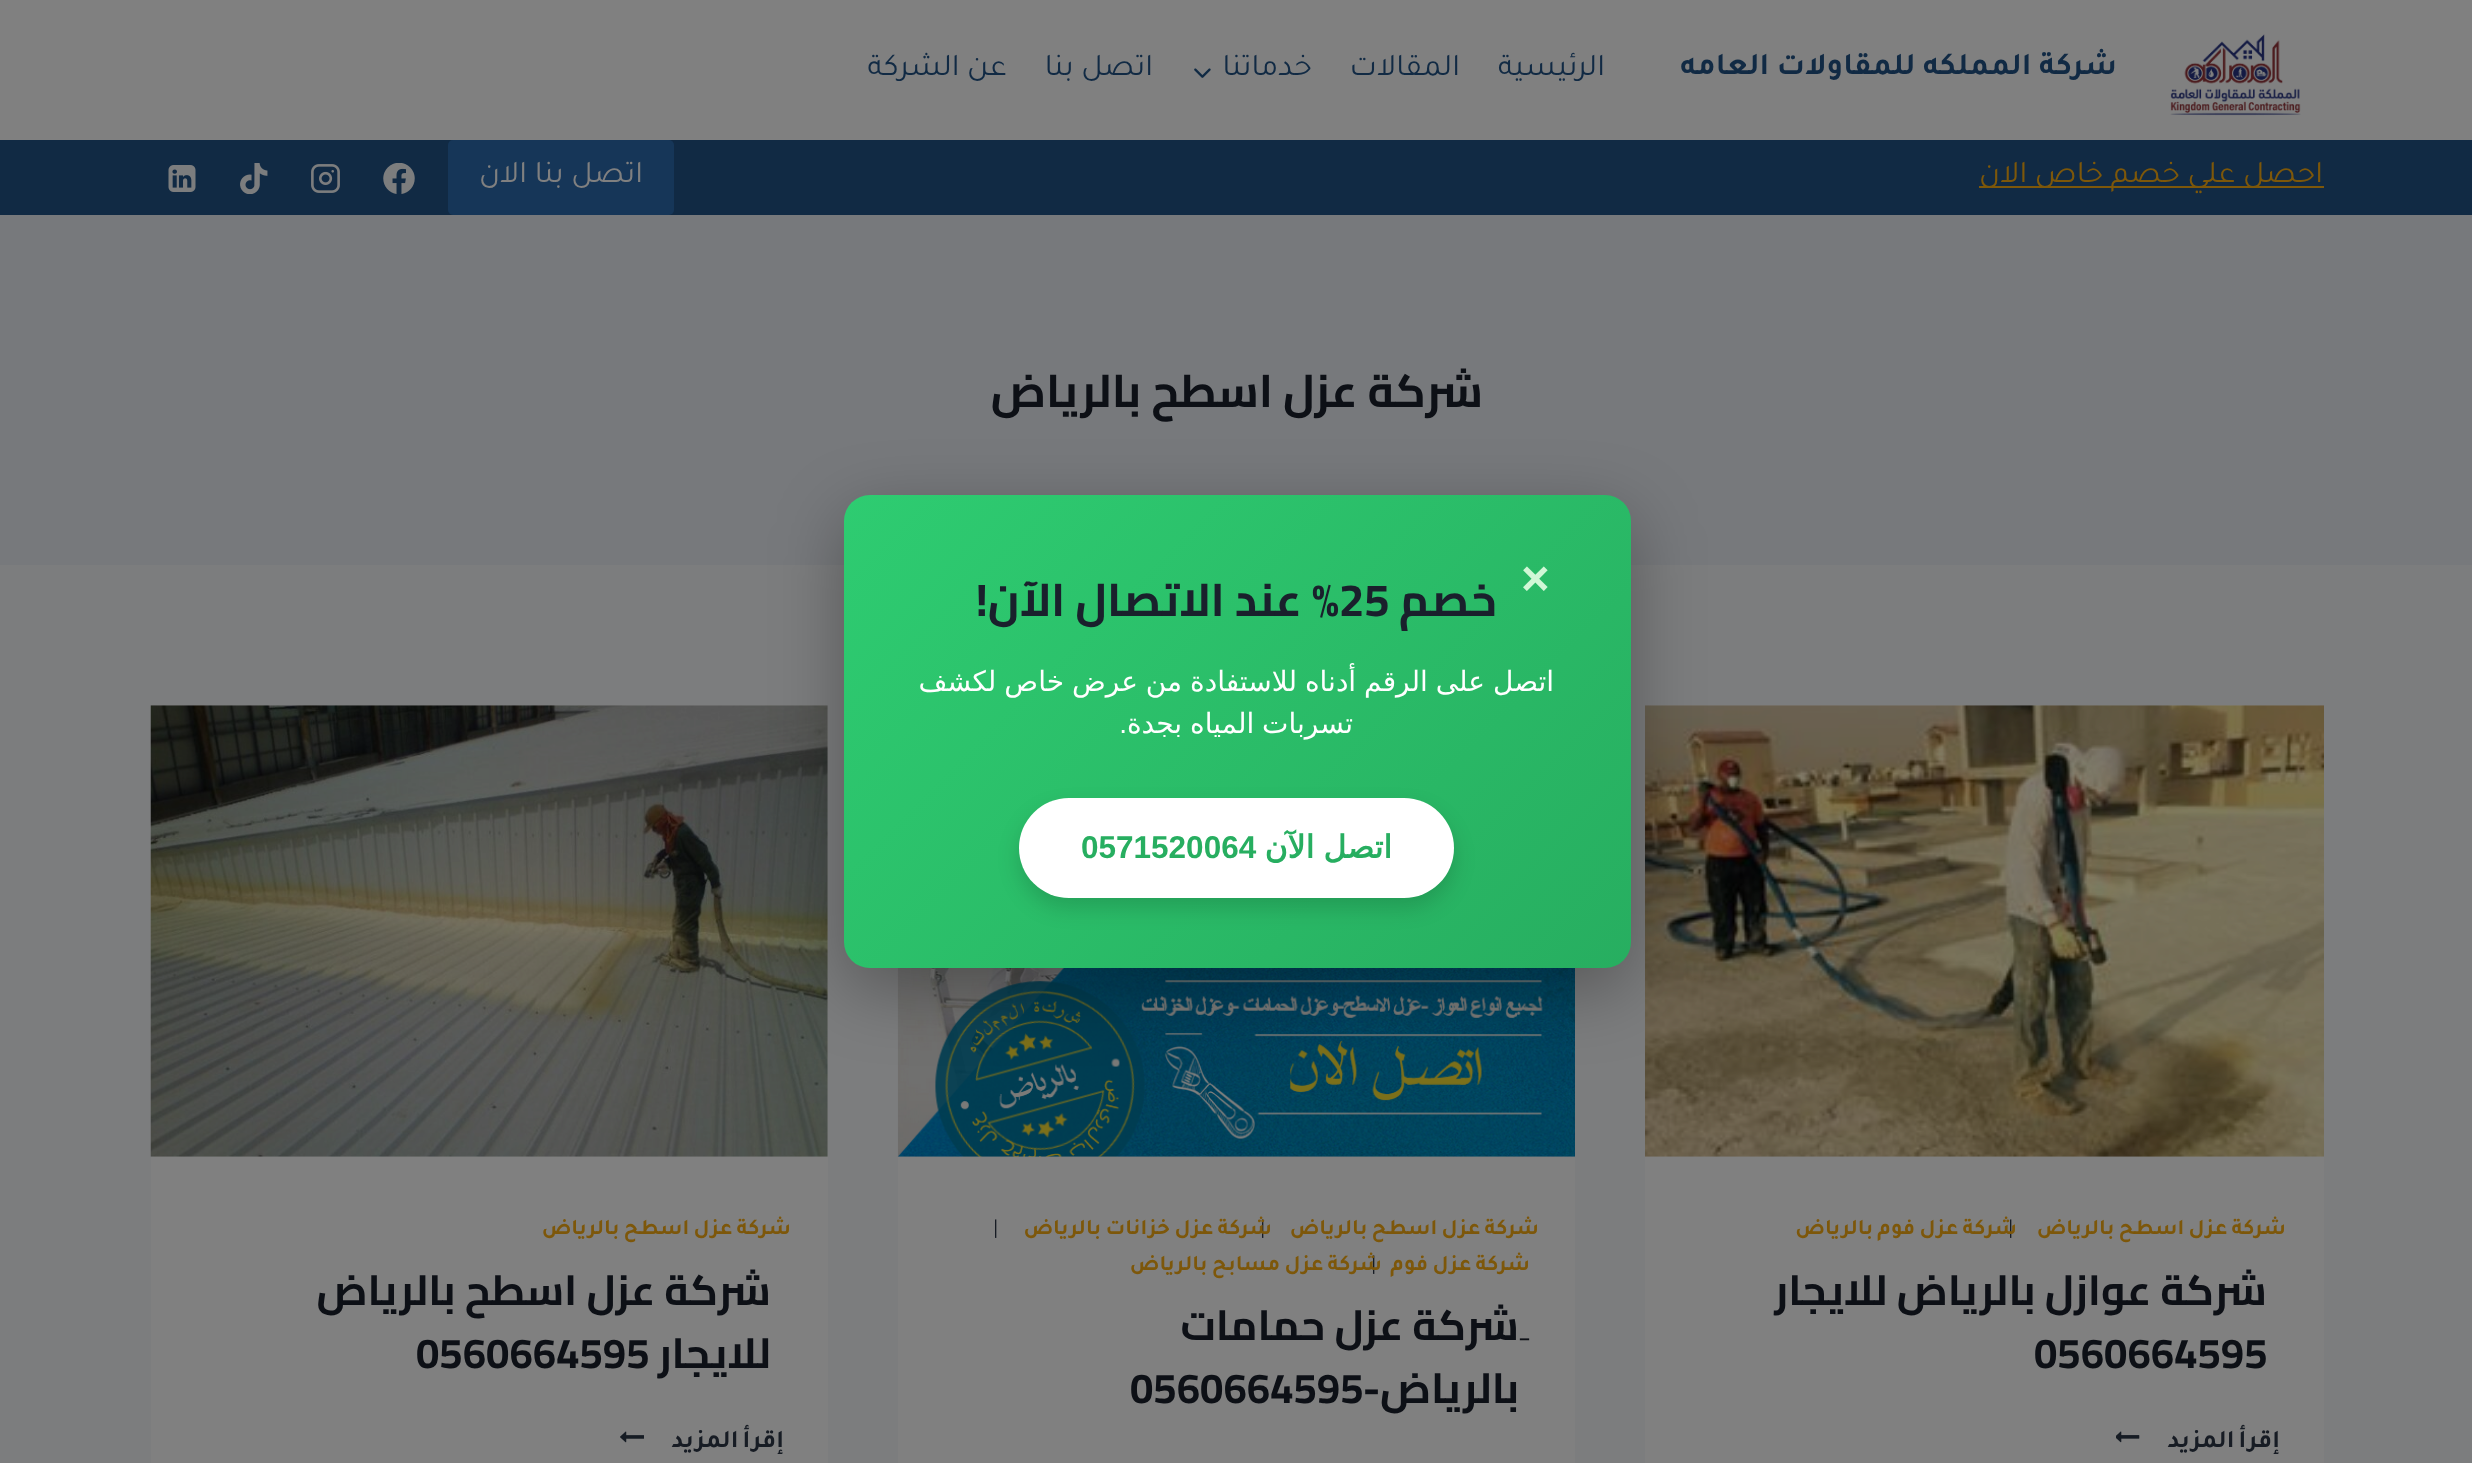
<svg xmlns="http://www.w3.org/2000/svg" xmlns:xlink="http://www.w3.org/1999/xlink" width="2472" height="1463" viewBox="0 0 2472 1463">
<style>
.cls-1{font:bold 31.5px Tajawal;direction:rtl;fill:#112a44}
.cls-2{font:31.5px Tajawal;direction:rtl;fill:#112a44}
.cls-3{font:31.5px Tajawal;direction:rtl;fill:#7d570a}
.cls-4{font:31.5px Tajawal;direction:rtl;fill:#808080}
.cls-5{font:bold 45.5px Cairo;direction:rtl;fill:#0d1016}
.cls-6{font:bold 22px Tajawal;letter-spacing:1.1px;direction:rtl;fill:#7d570a}
.cls-7{font:22px Tajawal;letter-spacing:1.1px;fill:#171c24}
.cls-8{font:bold 42px Cairo;direction:rtl;fill:#0d1016}
.cls-9{font:bold 42px Cairo;fill:#0d1016}
.cls-10{font:bold 25.25px Tajawal;letter-spacing:1.25px;direction:rtl;fill:#171c24}
.cls-11{font:bold 49px Liberation Sans;fill:#d1f7d6}
.cls-12{font:bold 45.5px Cairo;direction:rtl;fill:#1a202c}
.cls-13{font:bold 45.5px Cairo;fill:#1a202c}
.cls-14{font:28px DejaVu Sans;direction:rtl;fill:#ffffff}
.cls-15{font:28px Liberation Sans;direction:rtl;fill:#ffffff}
.cls-16{font:bold 31.5px DejaVu Sans;direction:rtl;fill:#27ae60}
.cls-17{font:bold 31.5px Liberation Sans;fill:#27ae60}
</style>
<defs>
<linearGradient id="g1" gradientUnits="userSpaceOnUse" x1="922" y1="417" x2="1552" y2="1047"><stop offset="0" stop-color="#2ecc71"/><stop offset="1" stop-color="#27ae60"/></linearGradient>
</defs>
<rect width="100%" height="100%" fill="#7c7d7e"/>
<rect fill="#808080" x="0" y="0" width="2472" height="140"/>
<image xlink:href="image0.png" x="2170" y="34" width="131" height="82"/>
<image xlink:href="image1.png" x="1194" y="68" width="17" height="10"/>
<rect fill="#112a44" x="0" y="140" width="2472" height="75"/>
<rect fill="#7d570a" x="1979" y="186" width="345" height="2"/>
<rect fill="#163658" x="448" y="140" width="226" height="75" rx="5"/>
<image xlink:href="image2.png" x="383" y="163" width="32" height="31"/>
<image xlink:href="image3.png" x="311" y="164" width="29" height="29"/>
<image xlink:href="image4.png" x="240" y="163" width="28" height="31"/>
<image xlink:href="image5.png" x="168" y="165" width="28" height="27"/>
<rect fill="#77797c" x="0" y="215" width="2472" height="350"/>
<rect fill="#808080" x="1645" y="705" width="679" height="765" rx="7"/>
<image xlink:href="image6.png" x="1645" y="705" width="679" height="452"/>
<image xlink:href="image7.png" x="2116" y="1431" width="24" height="12"/>
<rect fill="#808080" x="898" y="1156" width="677" height="307"/>
<image xlink:href="image8.png" x="897" y="968" width="678" height="189"/>
<rect fill="#808080" x="151" y="705" width="677" height="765" rx="7"/>
<image xlink:href="image9.png" x="150" y="705" width="678" height="452"/>
<image xlink:href="image10.png" x="620" y="1431" width="24" height="12"/>
<rect fill="#000000" fill-opacity="0.3" filter="blur(35px)" x="844" y="516" width="787" height="473" rx="26"/>
<rect fill="url(#g1)" x="844" y="495" width="787" height="473" rx="26"/>
<rect fill="#000000" fill-opacity="0.15" filter="blur(10.5px)" x="1019" y="809" width="435" height="99" rx="49.5"/>
<rect fill="#ffffff" x="1019" y="798" width="435" height="100" rx="50"/>
<text class="cls-1" x="2117" y="74">شركة المملكه للمقاولات العامه</text>
<text class="cls-2" x="1605" y="75">الرئيسية</text>
<text class="cls-2" x="1460" y="75">المقالات</text>
<text class="cls-2" x="1312" y="75">خدماتنا</text>
<text class="cls-2" x="1153" y="75">اتصل بنا</text>
<text class="cls-2" x="1007" y="75">عن الشركة</text>
<text class="cls-3" x="2323" y="182">احصل علي خصم خاص الان</text>
<text class="cls-4" x="643" y="182">اتصل بنا الان</text>
<text class="cls-5" x="1483" y="407">شركة عزل اسطح بالرياض</text>
<text class="cls-6" x="2286" y="1234" word-spacing="-1">شركة عزل اسطح بالرياض</text>
<text class="cls-7" x="2008" y="1234">|</text>
<text class="cls-6" x="2017" y="1234" word-spacing="-1">شركة عزل فوم بالرياض</text>
<text class="cls-8" x="2267" y="1305">شركة عوازل بالرياض للايجار</text>
<text class="cls-9" x="2034" y="1368">0560664595</text>
<text class="cls-10" x="2280" y="1447" word-spacing="-2">إقرأ المزيد</text>
<text class="cls-6" x="1539" y="1234" word-spacing="-1">شركة عزل اسطح بالرياض</text>
<text class="cls-7" x="993" y="1234">|</text>
<text class="cls-7" x="1260" y="1234">|</text>
<text class="cls-6" x="1272" y="1234" word-spacing="-1">شركة عزل خزانات بالرياض</text>
<text class="cls-6" x="1530" y="1270" word-spacing="-1">شركة عزل فوم</text>
<text class="cls-7" x="1371" y="1270">|</text>
<text class="cls-6" x="1382" y="1270" word-spacing="-1">شركة عزل مسابح بالرياض</text>
<text class="cls-8"><tspan x="1519" y="1340">ِشركة عزل حمامات</tspan><tspan x="1519" y="1403">بالرياض-</tspan></text>
<text class="cls-9" x="1130" y="1403">0560664595</text>
<text class="cls-6" x="791" y="1234" word-spacing="-1">شركة عزل اسطح بالرياض</text>
<text class="cls-8"><tspan x="771" y="1305">شركة عزل اسطح بالرياض</tspan><tspan x="771" y="1368">للايجار</tspan></text>
<text class="cls-9" x="416" y="1368">0560664595</text>
<text class="cls-10" x="784" y="1447" word-spacing="-2">إقرأ المزيد</text>
<text class="cls-11" x="1521" y="595">×</text>
<text class="cls-12" x="1497" y="616">خصم</text>
<text class="cls-13" x="1339" y="616">25</text>
<text class="cls-12" x="1339" y="616">% عند الاتصال الآن!</text>
<text class="cls-14" x="1554" y="691" word-spacing="-1">اتصل على الرقم أدناه للاستفادة من عرض خاص لكشف</text>
<text class="cls-14" x="1353" y="733" word-spacing="-1">تسربات المياه بجدة</text>
<text class="cls-15" x="1127" y="733">.</text>
<text class="cls-16" x="1392" y="858" word-spacing="-1">اتصل الآن</text>
<text class="cls-17" x="1081" y="858">0571520064</text>
</svg>
